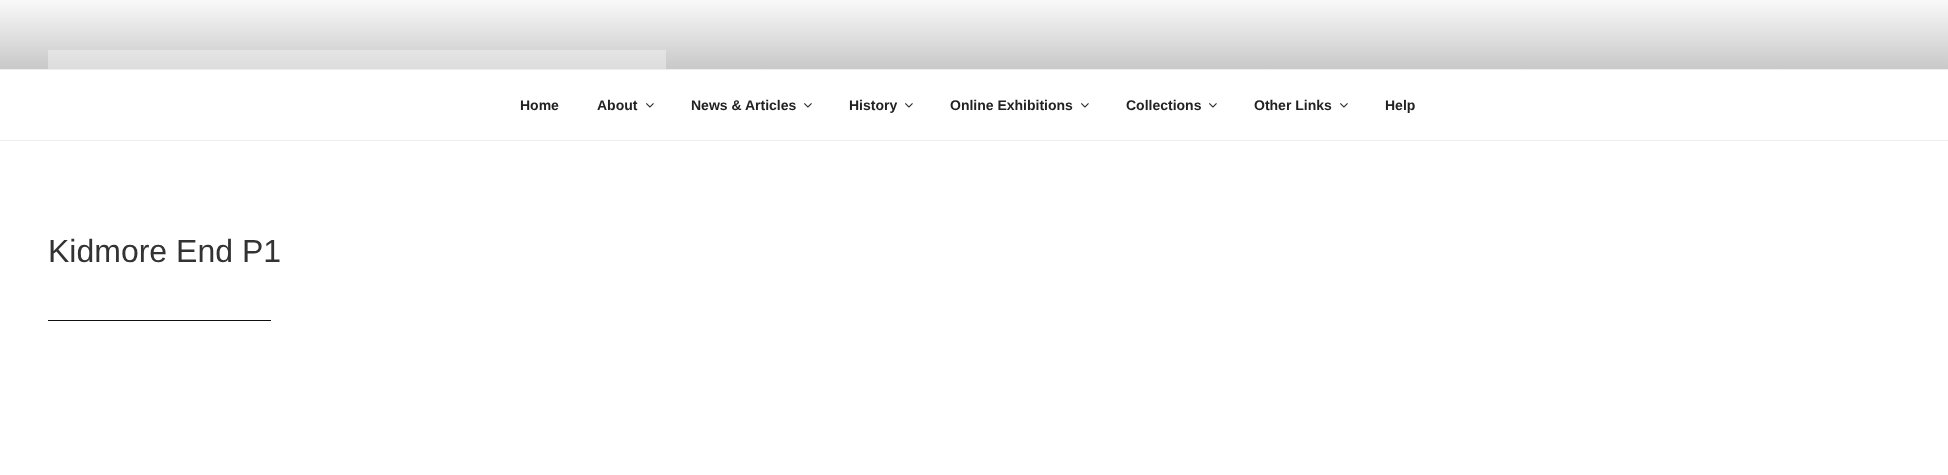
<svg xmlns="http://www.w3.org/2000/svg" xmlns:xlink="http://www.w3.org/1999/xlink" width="1948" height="475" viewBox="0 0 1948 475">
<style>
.cls-1{font:bold 14px Liberation Sans;fill:#222222}
.cls-2{font:32px Liberation Sans;fill:#333333}
</style>
<defs>
<linearGradient id="g1" gradientUnits="userSpaceOnUse" x1="974" y1="0" x2="974" y2="141"><stop offset="0" stop-color="#f9f9f9"/><stop offset="0.75" stop-color="#aeaeae"/><stop offset="1" stop-color="#aeaeae"/></linearGradient>
<linearGradient id="g2" gradientUnits="userSpaceOnUse" x1="974" y1="0" x2="974" y2="141"><stop offset="0" stop-color="#fbfbfb"/><stop offset="0.75" stop-color="#cccccc"/><stop offset="1" stop-color="#cccccc"/></linearGradient>
</defs>
<rect width="100%" height="100%" fill="#ffffff"/>
<rect fill="url(#g1)" x="0" y="0" width="1948" height="69"/>
<rect fill="url(#g2)" x="48" y="50" width="618" height="19"/>
<rect fill="#eeeeee" x="0" y="69" width="1948" height="1"/>
<rect fill="#eeeeee" x="0" y="140" width="1948" height="1"/>
<image xlink:href="image0.png" x="646" y="103" width="8" height="5"/>
<image xlink:href="image0.png" x="804" y="103" width="8" height="5"/>
<image xlink:href="image0.png" x="905" y="103" width="8" height="5"/>
<image xlink:href="image0.png" x="1081" y="103" width="8" height="5"/>
<image xlink:href="image0.png" x="1209" y="103" width="8" height="5"/>
<image xlink:href="image0.png" x="1340" y="103" width="8" height="5"/>
<rect fill="#0f0f0f" x="48" y="320" width="223" height="1"/>
<text class="cls-1" x="520" y="110">Home</text>
<text class="cls-1" x="597" y="110">About</text>
<text class="cls-1" x="691" y="110">News &amp; Articles</text>
<text class="cls-1" x="849" y="110">History</text>
<text class="cls-1" x="950" y="110">Online Exhibitions</text>
<text class="cls-1" x="1126" y="110">Collections</text>
<text class="cls-1" x="1254" y="110">Other Links</text>
<text class="cls-1" x="1385" y="110">Help</text>
<text class="cls-2" x="48" y="262">Kidmore End P1</text>
</svg>
